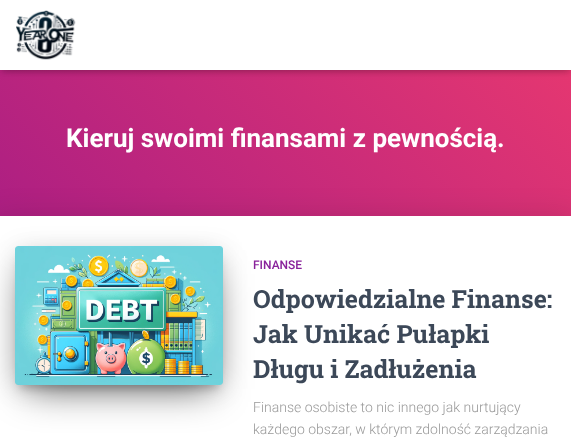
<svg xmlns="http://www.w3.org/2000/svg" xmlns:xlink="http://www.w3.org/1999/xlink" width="571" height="438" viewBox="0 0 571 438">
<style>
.cls-1{font:bold 26px Roboto;fill:#ffffff}
.cls-2{font:500 12px Roboto;fill:#89229b}
.cls-3{font:bold 25px Roboto Slab;fill:#3c4858}
.cls-4{font:300 14px Roboto;fill:#999999}
</style>
<defs>
<linearGradient id="g1" gradientUnits="userSpaceOnUse" x1="74" y1="350" x2="497" y2="-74"><stop offset="0" stop-color="#a81d84"/><stop offset="1" stop-color="#ea396f"/></linearGradient>
</defs>
<rect width="100%" height="100%" fill="#ffffff"/>
<rect fill="url(#g1)" x="0" y="70" width="571" height="146"/>
<rect fill="#000000" fill-opacity="0.1" filter="blur(2.5px)" x="2" y="6" width="567" height="66"/>
<rect fill="#000000" fill-opacity="0.12" filter="blur(5px)" x="0" y="1" width="571" height="70"/>
<rect fill="#000000" fill-opacity="0.42" filter="blur(5px)" x="6" y="7" width="559" height="58"/>
<rect fill="#ffffff" x="0" y="0" width="571" height="70"/>
<image xlink:href="image0.png" x="16" y="10" width="60" height="50"/>
<rect fill="#000000" fill-opacity="0.12" filter="blur(15px)" x="-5" y="217" width="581" height="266"/>
<rect fill="#ffffff" x="0" y="216" width="571" height="222"/>
<rect fill="#000000" fill-opacity="0.2" filter="blur(5px)" x="20" y="259" width="198" height="129"/>
<rect fill="#000000" fill-opacity="0.12" filter="blur(12.5px)" x="15" y="250" width="208" height="139" rx="3"/>
<rect fill="#000000" fill-opacity="0.56" filter="blur(19px)" x="27" y="274" width="184" height="115"/>
<image xlink:href="image1.png" x="15" y="246" width="208" height="139"/>
<text class="cls-1" x="66" y="147">Kieruj swoimi finansami z pewnością.</text>
<text class="cls-2" x="253" y="269">FINANSE</text>
<text class="cls-3"><tspan x="253" y="308">Odpowiedzialne Finanse:</tspan><tspan x="253" y="343">Jak Unikać Pułapki</tspan><tspan x="253" y="378">Długu i Zadłużenia</tspan></text>
<text class="cls-4"><tspan x="253" y="412">Finanse osobiste to nic innego jak nurtujący</tspan><tspan x="253" y="434">każdego obszar, w którym zdolność zarządzania</tspan></text>
</svg>
